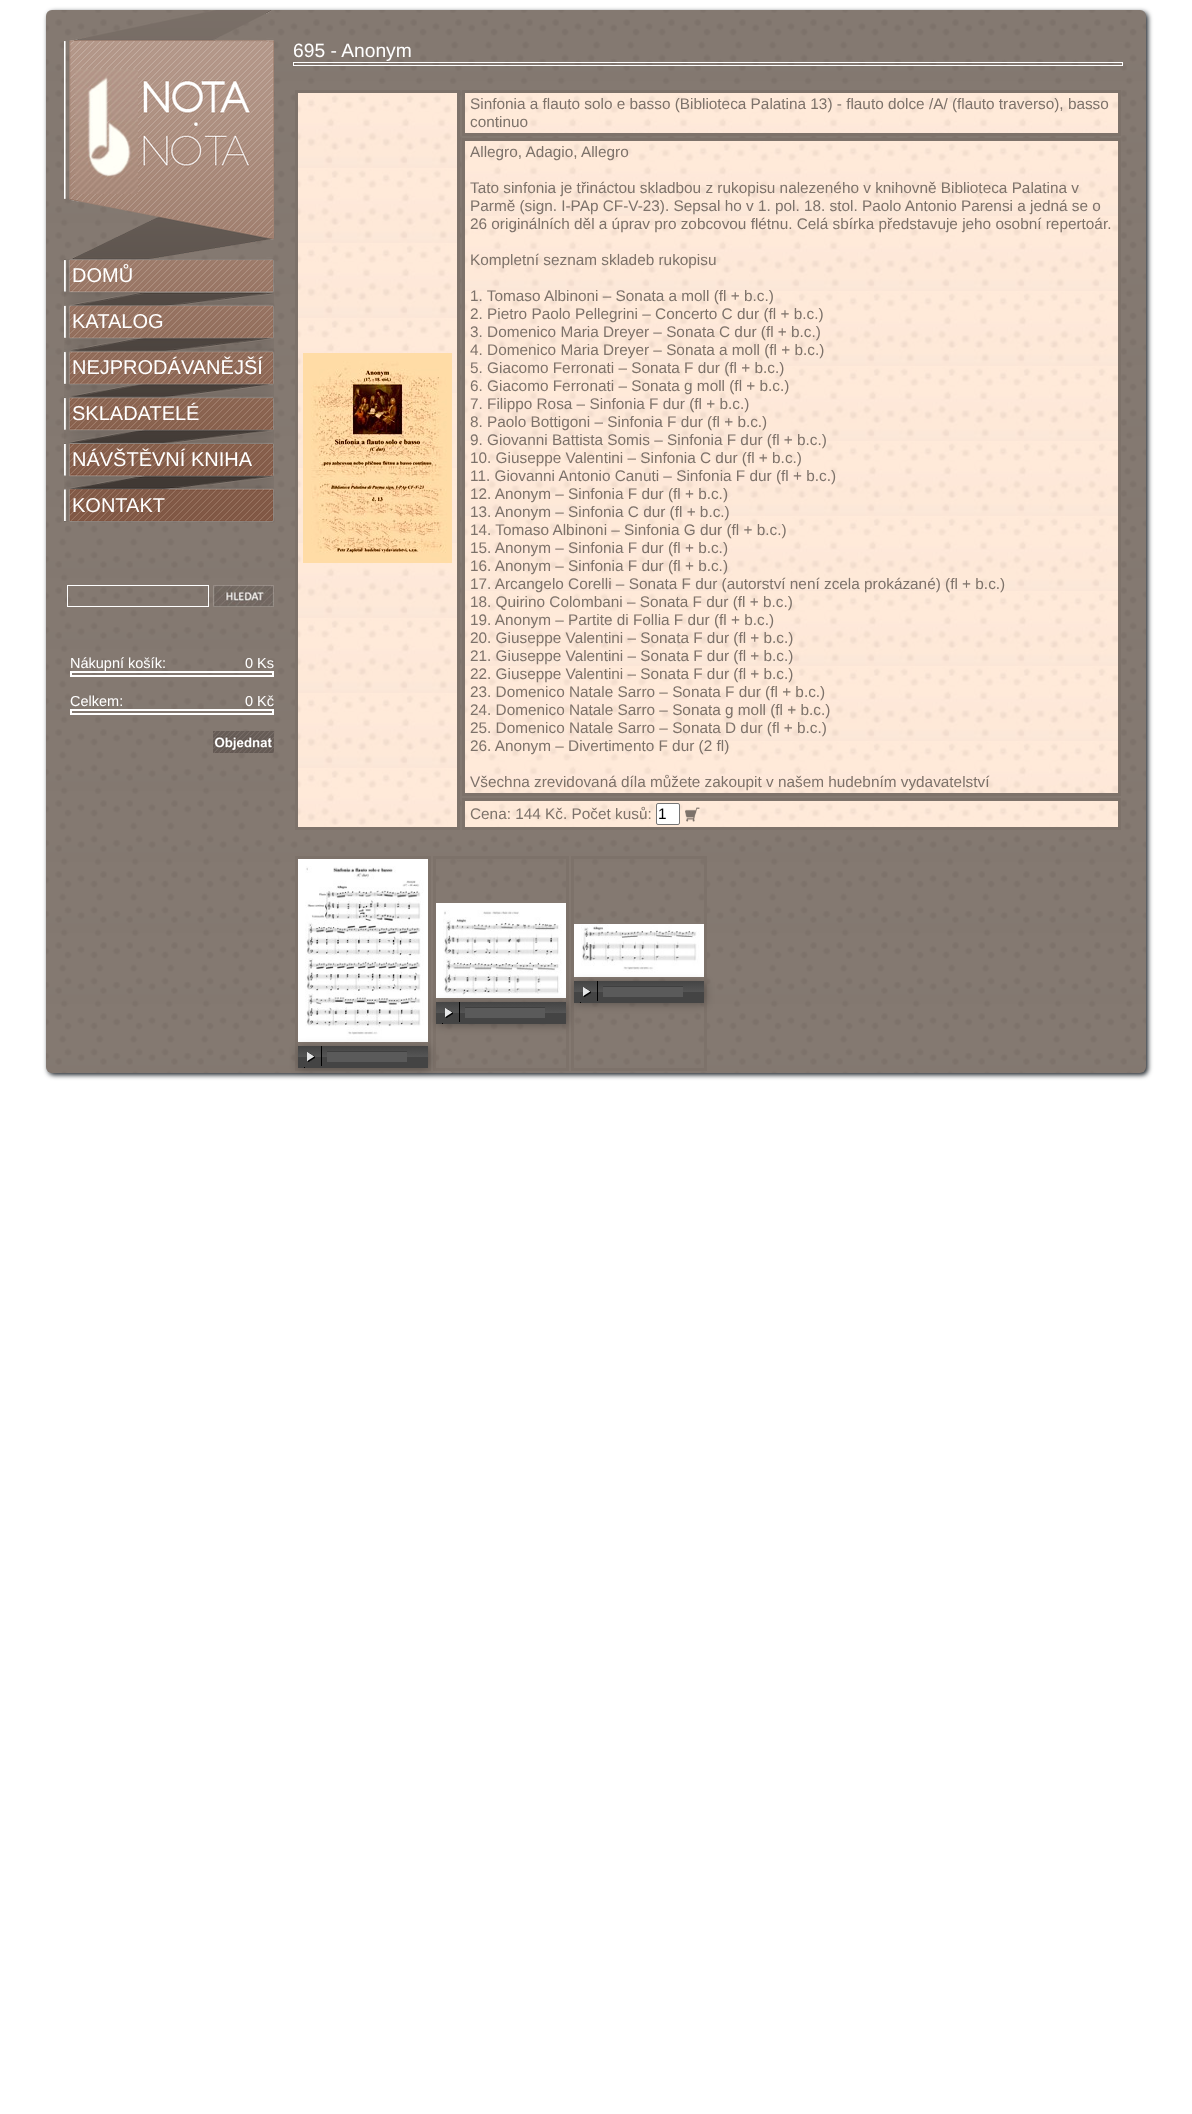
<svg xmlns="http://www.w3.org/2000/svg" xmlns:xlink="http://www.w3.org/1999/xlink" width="1192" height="2114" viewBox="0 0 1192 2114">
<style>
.cls-1{font:20px Liberation Sans;fill:#ffffff}
.cls-2{font:14.5px Liberation Sans;fill:#ffffff}
.cls-3{font:19.25px Liberation Sans;fill:#ffffff}
.cls-4{font:15.35px Liberation Sans;fill:#7d726a}
.cls-5{font:15.35px Liberation Sans;fill:#000000}
</style>
<defs>
<linearGradient id="g1" gradientUnits="userSpaceOnUse" x1="298" y1="1046" x2="298" y2="1068"><stop offset="0" stop-color="#444444"/><stop offset="0.5" stop-color="#555555"/><stop offset="0.51" stop-color="#444444"/><stop offset="1" stop-color="#444444"/></linearGradient>
<linearGradient id="g2" gradientUnits="userSpaceOnUse" x1="436" y1="1002" x2="436" y2="1024"><stop offset="0" stop-color="#444444"/><stop offset="0.5" stop-color="#555555"/><stop offset="0.51" stop-color="#444444"/><stop offset="1" stop-color="#444444"/></linearGradient>
<linearGradient id="g3" gradientUnits="userSpaceOnUse" x1="574" y1="981" x2="574" y2="1003"><stop offset="0" stop-color="#444444"/><stop offset="0.5" stop-color="#555555"/><stop offset="0.51" stop-color="#444444"/><stop offset="1" stop-color="#444444"/></linearGradient>
</defs>
<rect width="100%" height="100%" fill="#ffffff"/>
<rect fill="#1c2228" filter="blur(2.5px)" x="48" y="12" width="1100" height="1063" rx="6"/>
<image xlink:href="image0.png" x="46" y="10" width="1100" height="1063"/>
<image xlink:href="image1.png" x="64" y="10" width="210" height="249"/>
<image xlink:href="image2.png" x="64" y="259" width="210" height="263"/>
<rect fill="none" stroke="#ffffff" x="67.5" y="585.5" width="141" height="21"/>
<image xlink:href="image3.png" x="213" y="585" width="61" height="22"/>
<rect fill="none" stroke="#ffffff" stroke-width="2" x="71" y="672" width="202" height="4"/>
<rect fill="none" stroke="#ffffff" stroke-width="2" x="71" y="710" width="202" height="4"/>
<image xlink:href="image4.png" x="213" y="731" width="61" height="22"/>
<rect fill="none" stroke="#ffffff" x="293.5" y="62.5" width="829" height="3"/>
<image xlink:href="image5.png" x="298" y="93" width="159" height="734"/>
<rect fill="none" stroke="#7d726a" stroke-width="3" x="296.5" y="91.5" width="162" height="737"/>
<image xlink:href="image6.png" x="303" y="353" width="149" height="210"/>
<image xlink:href="image7.png" x="465" y="93" width="653" height="40"/>
<rect fill="none" stroke="#7d726a" stroke-width="3" x="463.5" y="91.5" width="656" height="43"/>
<image xlink:href="image8.png" x="465" y="141" width="653" height="652"/>
<rect fill="none" stroke="#7d726a" stroke-width="3" x="463.5" y="139.5" width="656" height="655"/>
<image xlink:href="image9.png" x="465" y="801" width="653" height="26"/>
<rect fill="none" stroke="#7d726a" stroke-width="3" x="463.5" y="799.5" width="656" height="29"/>
<rect fill="#ffffff" stroke="#767676" x="656.5" y="803.5" width="23" height="21" rx="1.5"/>
<image xlink:href="image10.png" x="685" y="807" width="15" height="15"/>
<rect fill="none" stroke="#7d726a" stroke-width="3" x="296.5" y="857.5" width="133" height="212"/>
<image xlink:href="image11.png" x="298" y="859" width="130" height="183"/>
<rect fill="none" stroke="#7d726a" stroke-width="3" x="434.5" y="857.5" width="133" height="212"/>
<rect fill="#000000" fill-opacity="0.3" filter="blur(4px)" x="299" y="1047" width="130" height="22"/>
<rect fill="url(#g1)" x="298" y="1046" width="130" height="22"/>
<rect fill="#000000" x="321" y="1046" width="1" height="20"/>
<image xlink:href="image12.png" x="307" y="1052" width="8" height="10"/>
<rect fill="#5a5a5a" x="327" y="1052" width="80" height="10"/>
<rect fill="#3f3f3f" x="327" y="1051" width="80" height="1"/>
<rect fill="#000000" x="304" y="1067" width="1" height="1"/>
<image xlink:href="image13.png" x="436" y="903" width="130" height="95"/>
<rect fill="none" stroke="#7d726a" stroke-width="3" x="572.5" y="857.5" width="133" height="212"/>
<rect fill="#000000" fill-opacity="0.3" filter="blur(4px)" x="437" y="1003" width="130" height="22"/>
<rect fill="url(#g2)" x="436" y="1002" width="130" height="22"/>
<rect fill="#000000" x="459" y="1002" width="1" height="20"/>
<image xlink:href="image12.png" x="445" y="1008" width="8" height="10"/>
<rect fill="#5a5a5a" x="465" y="1008" width="80" height="10"/>
<rect fill="#3f3f3f" x="465" y="1007" width="80" height="1"/>
<rect fill="#000000" x="442" y="1023" width="1" height="1"/>
<image xlink:href="image14.png" x="574" y="924" width="130" height="53"/>
<rect fill="#000000" fill-opacity="0.3" filter="blur(4px)" x="575" y="982" width="130" height="22"/>
<rect fill="url(#g3)" x="574" y="981" width="130" height="22"/>
<rect fill="#000000" x="597" y="981" width="1" height="20"/>
<image xlink:href="image12.png" x="583" y="987" width="8" height="10"/>
<rect fill="#5a5a5a" x="603" y="987" width="80" height="10"/>
<rect fill="#3f3f3f" x="603" y="986" width="80" height="1"/>
<rect fill="#000000" x="580" y="1002" width="1" height="1"/>
<text class="cls-1" x="72" y="282">DOMŮ</text>
<text class="cls-1" x="72" y="328">KATALOG</text>
<text class="cls-1" x="72" y="374">NEJPRODÁVANĚJŠÍ</text>
<text class="cls-1" x="72" y="420">SKLADATELÉ</text>
<text class="cls-1" x="72" y="466">NÁVŠTĚVNÍ KNIHA</text>
<text class="cls-1" x="72" y="512">KONTAKT</text>
<text class="cls-2" x="70" y="668">Nákupní košík:</text>
<text class="cls-2" x="245" y="668">0 Ks</text>
<text class="cls-2" x="70" y="706">Celkem:</text>
<text class="cls-2" x="245" y="706">0 Kč</text>
<text class="cls-3" x="293" y="57">695 - Anonym</text>
<text class="cls-4"><tspan x="470" y="109">Sinfonia a flauto solo e basso (Biblioteca Palatina 13) - flauto dolce /A/ (flauto traverso), basso</tspan><tspan x="470" y="127">continuo</tspan><tspan x="470" y="157">Allegro, Adagio, Allegro</tspan></text>
<text class="cls-4"><tspan x="470" y="193">Tato sinfonia je třináctou skladbou z rukopisu nalezeného v knihovně Biblioteca Palatina v</tspan><tspan x="470" y="211">Parmě (sign. I-PAp CF-V-23). Sepsal ho v 1. pol. 18. stol. Paolo Antonio Parensi a jedná se o</tspan><tspan x="470" y="229">26 originálních děl a úprav pro zobcovou flétnu. Celá sbírka představuje jeho osobní repertoár.</tspan></text>
<text class="cls-4" x="470" y="265">Kompletní seznam skladeb rukopisu</text>
<text class="cls-4"><tspan x="470" y="301">1. Tomaso Albinoni – Sonata a moll (fl + b.c.)</tspan><tspan x="470" y="319">2. Pietro Paolo Pellegrini – Concerto C dur (fl + b.c.)</tspan><tspan x="470" y="337">3. Domenico Maria Dreyer – Sonata C dur (fl + b.c.)</tspan><tspan x="470" y="355">4. Domenico Maria Dreyer – Sonata a moll (fl + b.c.)</tspan><tspan x="470" y="373">5. Giacomo Ferronati – Sonata F dur (fl + b.c.)</tspan><tspan x="470" y="391">6. Giacomo Ferronati – Sonata g moll (fl + b.c.)</tspan><tspan x="470" y="409">7. Filippo Rosa – Sinfonia F dur (fl + b.c.)</tspan><tspan x="470" y="427">8. Paolo Bottigoni – Sinfonia F dur (fl + b.c.)</tspan><tspan x="470" y="445">9. Giovanni Battista Somis – Sinfonia F dur (fl + b.c.)</tspan><tspan x="470" y="463">10. Giuseppe Valentini – Sinfonia C dur (fl + b.c.)</tspan><tspan x="470" y="481">11. Giovanni Antonio Canuti – Sinfonia F dur (fl + b.c.)</tspan><tspan x="470" y="499">12. Anonym – Sinfonia F dur (fl + b.c.)</tspan><tspan x="470" y="517">13. Anonym – Sinfonia C dur (fl + b.c.)</tspan><tspan x="470" y="535">14. Tomaso Albinoni – Sinfonia G dur (fl + b.c.)</tspan><tspan x="470" y="553">15. Anonym – Sinfonia F dur (fl + b.c.)</tspan><tspan x="470" y="571">16. Anonym – Sinfonia F dur (fl + b.c.)</tspan><tspan x="470" y="589">17. Arcangelo Corelli – Sonata F dur (autorství není zcela prokázané) (fl + b.c.)</tspan><tspan x="470" y="607">18. Quirino Colombani – Sonata F dur (fl + b.c.)</tspan><tspan x="470" y="625">19. Anonym – Partite di Follia F dur (fl + b.c.)</tspan><tspan x="470" y="643">20. Giuseppe Valentini – Sonata F dur (fl + b.c.)</tspan><tspan x="470" y="661">21. Giuseppe Valentini – Sonata F dur (fl + b.c.)</tspan><tspan x="470" y="679">22. Giuseppe Valentini – Sonata F dur (fl + b.c.)</tspan><tspan x="470" y="697">23. Domenico Natale Sarro – Sonata F dur (fl + b.c.)</tspan><tspan x="470" y="715">24. Domenico Natale Sarro – Sonata g moll (fl + b.c.)</tspan><tspan x="470" y="733">25. Domenico Natale Sarro – Sonata D dur (fl + b.c.)</tspan><tspan x="470" y="751">26. Anonym – Divertimento F dur (2 fl)</tspan></text>
<text class="cls-4" x="470" y="787">Všechna zrevidovaná díla můžete zakoupit v našem hudebním vydavatelství</text>
<text class="cls-4" x="470" y="819">Cena: 144 Kč. Počet kusů:</text>
<text class="cls-5" x="658" y="819">1</text>
</svg>
